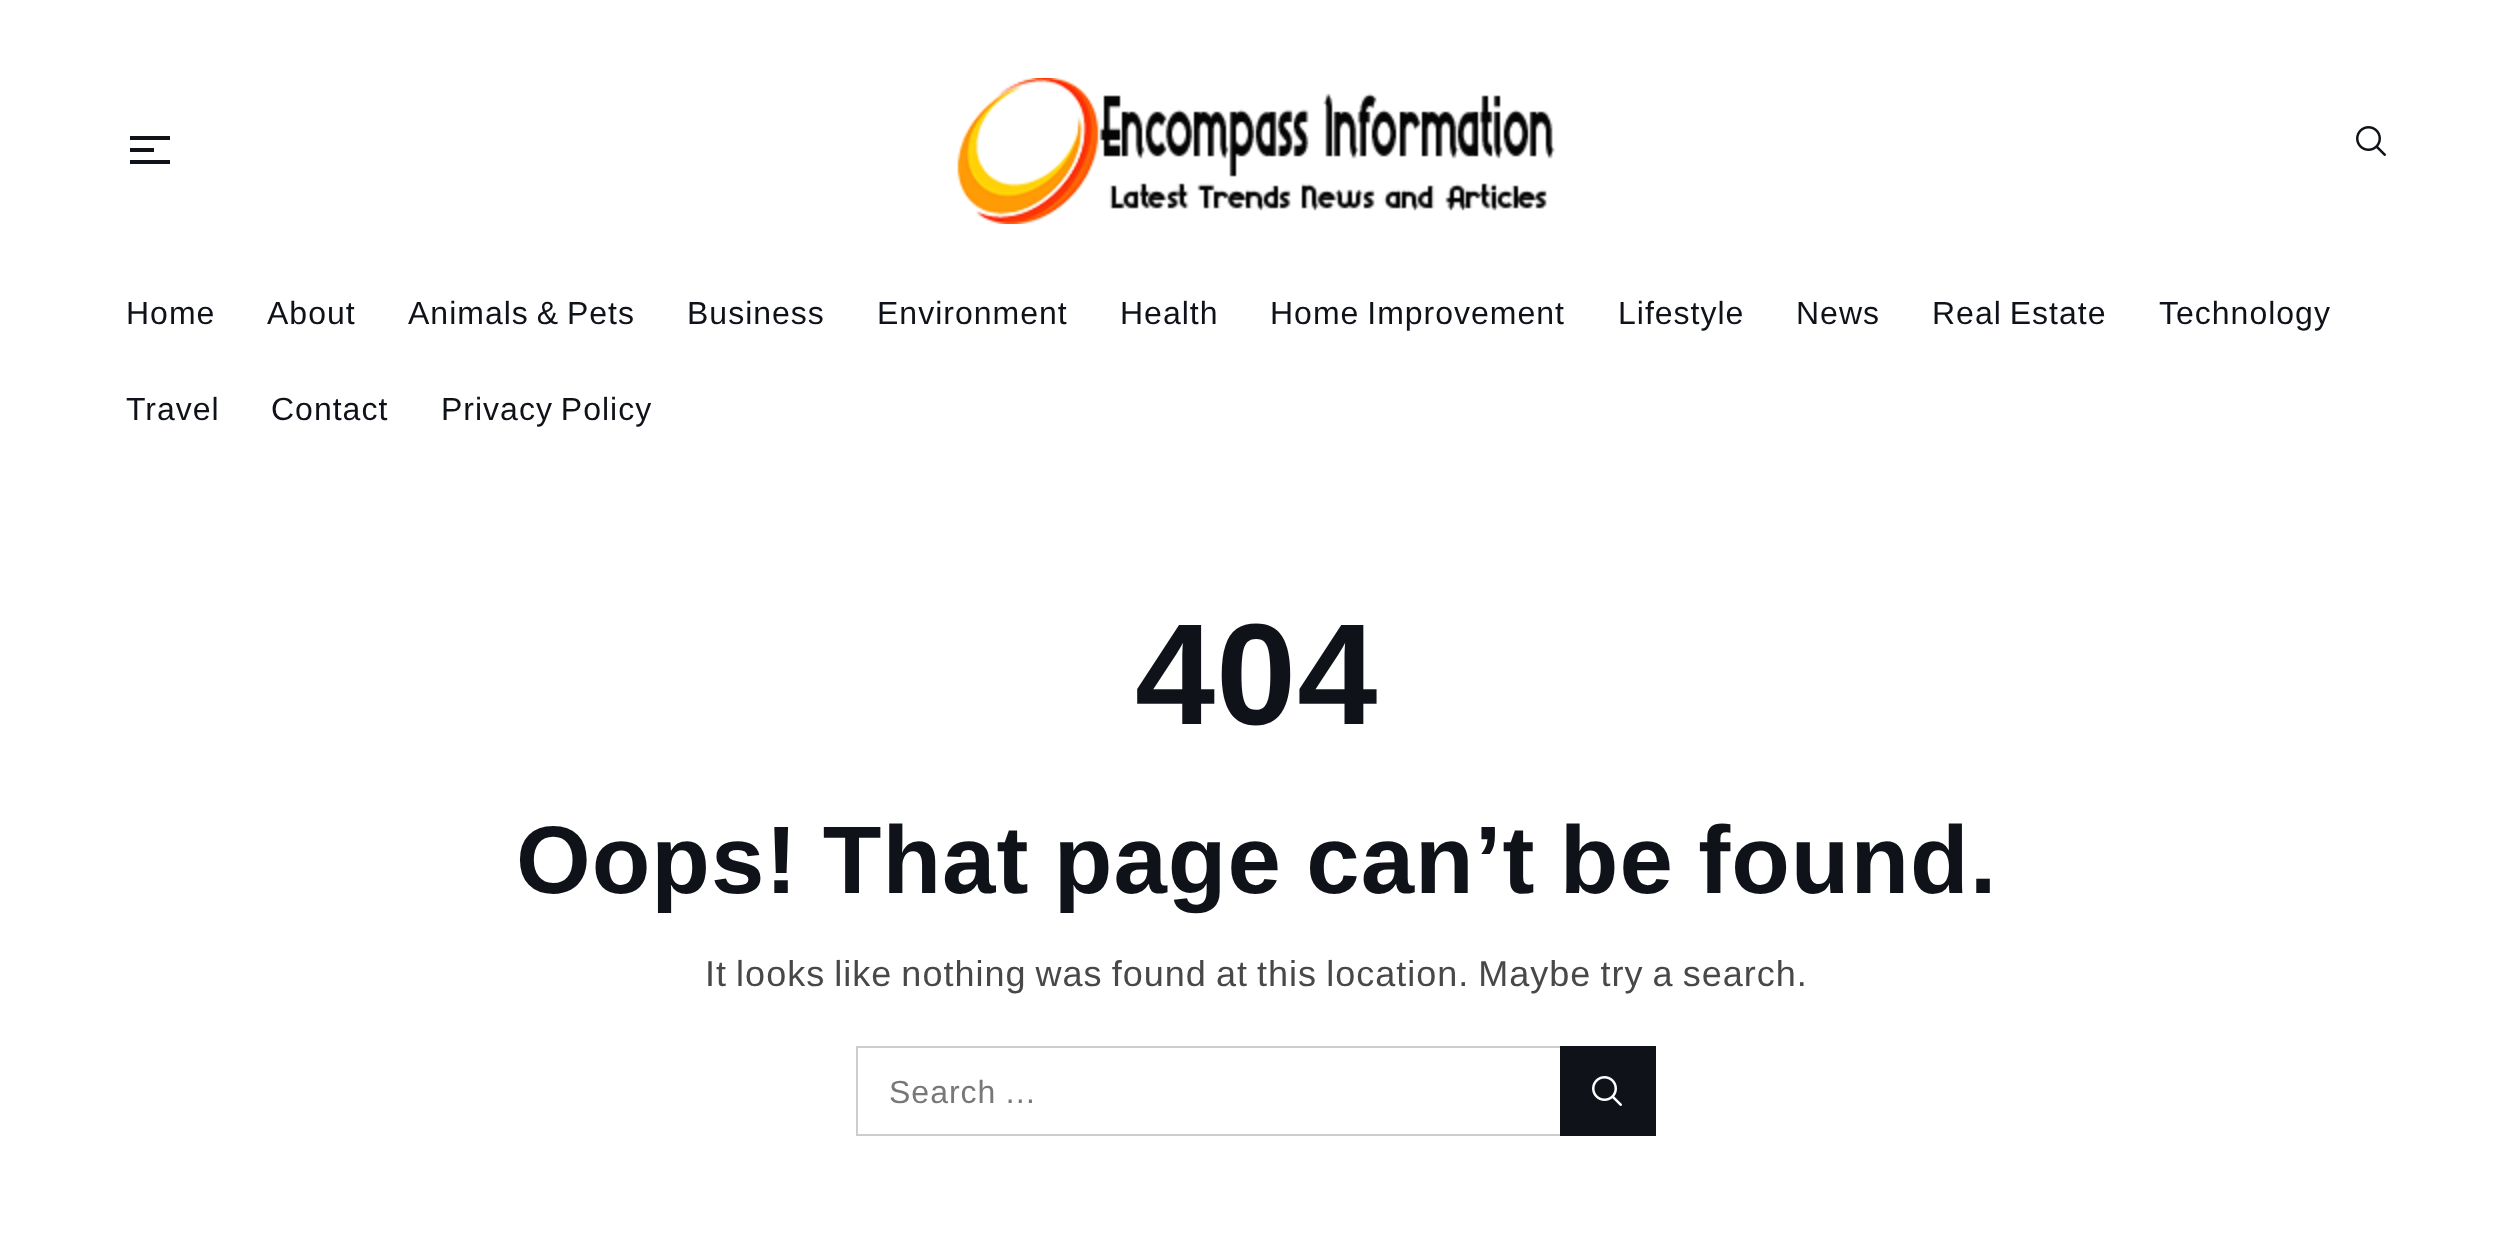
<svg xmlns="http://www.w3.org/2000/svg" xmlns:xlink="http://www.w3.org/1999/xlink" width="2514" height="1257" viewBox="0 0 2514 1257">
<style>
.cls-1{font:32px Liberation Sans;letter-spacing:1px;fill:#0f1319}
.cls-2{font:bold 144px Liberation Sans;letter-spacing:1px;fill:#0f1319}
.cls-3{font:bold 96px Liberation Sans;letter-spacing:1px;fill:#0f1319}
.cls-4{font:36px Liberation Sans;letter-spacing:1px;fill:#484848}
.cls-5{font:32px Liberation Sans;letter-spacing:1px;fill:#787878}
</style>
<rect width="100%" height="100%" fill="#ffffff"/>
<rect fill="#0f1319" x="130" y="136" width="40" height="4"/>
<rect fill="#0f1319" x="130" y="148" width="24" height="4"/>
<rect fill="#0f1319" x="130" y="160" width="40" height="4"/>
<image xlink:href="image0.png" x="957" y="78" width="598" height="146"/>
<image xlink:href="image1.png" x="2356" y="126" width="30" height="30"/>
<rect fill="none" stroke="#cdcdcd" stroke-width="2" x="857" y="1047" width="798" height="88"/>
<rect fill="#0f1319" x="1560" y="1046" width="96" height="90"/>
<image xlink:href="image2.png" x="1592" y="1076" width="30" height="30"/>
<text class="cls-1" x="126" y="324">Home</text>
<text class="cls-1" x="267" y="324">About</text>
<text class="cls-1" x="408" y="324" word-spacing="-2">Animals &amp; Pets</text>
<text class="cls-1" x="687" y="324">Business</text>
<text class="cls-1" x="877" y="324">Environment</text>
<text class="cls-1" x="1120" y="324">Health</text>
<text class="cls-1" x="1270" y="324" word-spacing="-2">Home Improvement</text>
<text class="cls-1" x="1618" y="324">Lifestyle</text>
<text class="cls-1" x="1796" y="324">News</text>
<text class="cls-1" x="1932" y="324" word-spacing="-2">Real Estate</text>
<text class="cls-1" x="2159" y="324">Technology</text>
<text class="cls-1" x="126" y="420">Travel</text>
<text class="cls-1" x="271" y="420">Contact</text>
<text class="cls-1" x="441" y="420" word-spacing="-2">Privacy Policy</text>
<text class="cls-2" x="1135" y="724">404</text>
<text class="cls-3" x="516" y="893" word-spacing="-3.25">Oops! That page can’t be found.</text>
<text class="cls-4" x="705" y="986" word-spacing="-1.9">It looks like nothing was found at this location. Maybe try a search.</text>
<text class="cls-5" x="889" y="1103" word-spacing="-2">Search …</text>
</svg>
